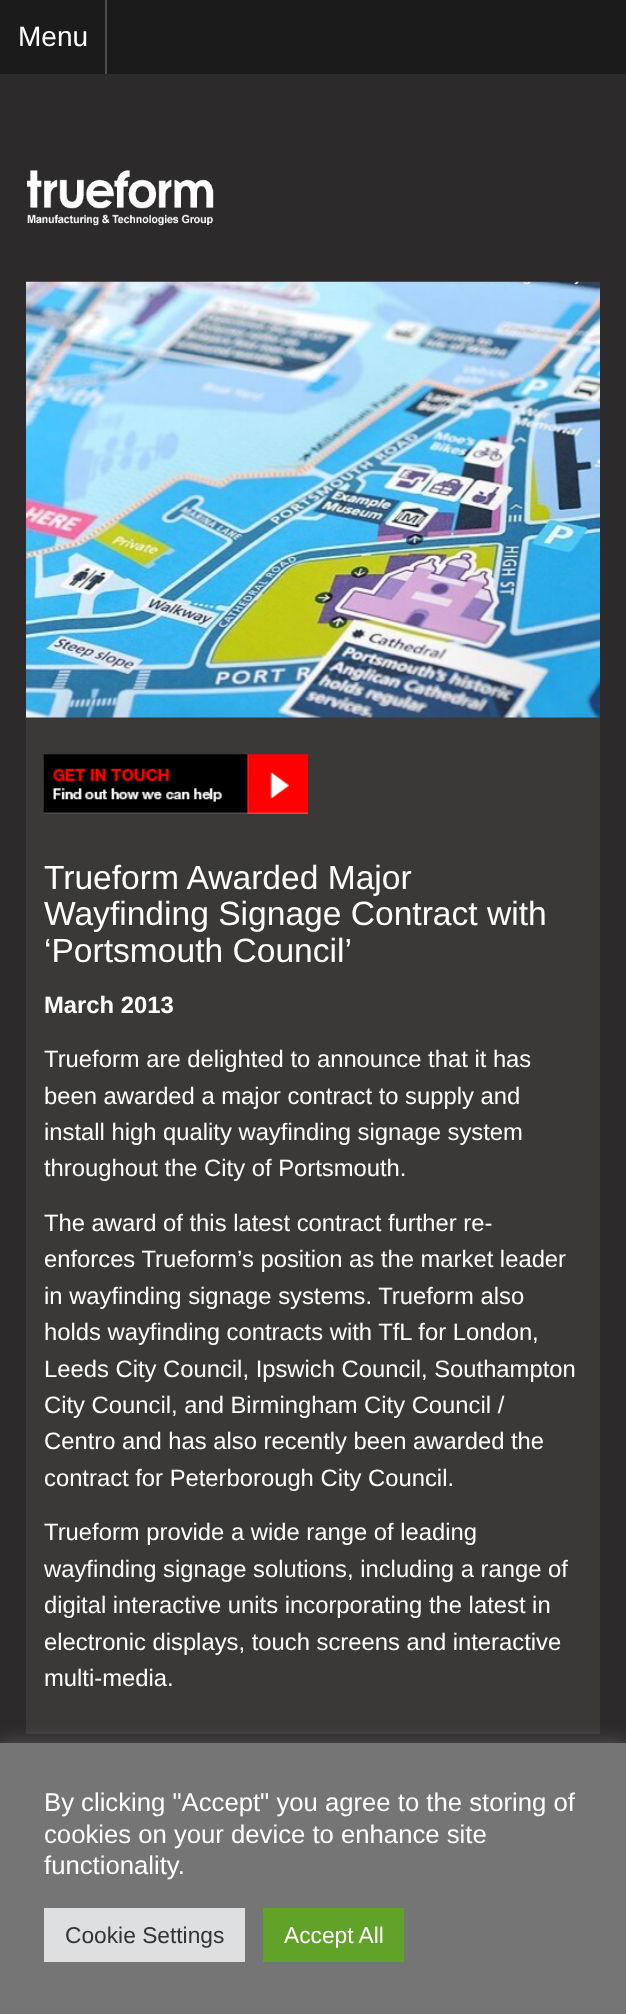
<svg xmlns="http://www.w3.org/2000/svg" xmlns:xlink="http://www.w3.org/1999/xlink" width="626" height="2014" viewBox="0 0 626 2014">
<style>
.cls-1{font:28px Liberation Sans;fill:#ffffff}
.cls-2{font:33.6px Liberation Sans;fill:#ffffff}
.cls-3{font:bold 23.8px Liberation Sans;fill:#ffffff}
.cls-4{font:23.8px Liberation Sans;fill:#ffffff}
.cls-5{font:25.7px Liberation Sans;fill:#ffffff}
.cls-6{font:22.75px Liberation Sans;fill:#333333}
.cls-7{font:22.75px Liberation Sans;fill:#ffffff}
</style>
<rect width="100%" height="100%" fill="#2c2a2b"/>
<rect fill="#1b1b1b" x="0" y="0" width="626" height="74"/>
<rect fill="#4e4e4e" x="105" y="0" width="2" height="74"/>
<image xlink:href="image0.png" x="27" y="170" width="187" height="56"/>
<rect fill="#3a3938" x="26" y="717" width="574" height="1017"/>
<image xlink:href="image1.png" x="26" y="281" width="574" height="437"/>
<image xlink:href="image2.png" x="43" y="754" width="265" height="60"/>
<rect fill="#acabab" fill-opacity="0.3" filter="blur(9px)" x="0" y="1741" width="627" height="272"/>
<rect fill="#757575" x="0" y="1743" width="626" height="271"/>
<rect fill="#dedfe0" x="44" y="1908" width="201" height="54"/>
<rect fill="#61a229" x="263" y="1908" width="141" height="54"/>
<text class="cls-1" x="18" y="46">Menu</text>
<text class="cls-2"><tspan x="44" y="889">Trueform Awarded Major</tspan><tspan x="44" y="925">Wayfinding Signage Contract with</tspan><tspan x="44" y="962">‘Portsmouth Council’</tspan></text>
<text class="cls-3" x="44" y="1013">March 2013</text>
<text class="cls-4"><tspan x="44" y="1067">Trueform are delighted to announce that it has</tspan><tspan x="44" y="1104">been awarded a major contract to supply and</tspan><tspan x="44" y="1140">install high quality wayfinding signage system</tspan><tspan x="44" y="1176">throughout the City of Portsmouth.</tspan></text>
<text class="cls-4"><tspan x="44" y="1231">The award of this latest contract further re-</tspan><tspan x="44" y="1267">enforces Trueform’s position as the market leader</tspan><tspan x="44" y="1304">in wayfinding signage systems. Trueform also</tspan><tspan x="44" y="1340">holds wayfinding contracts with TfL for London,</tspan><tspan x="44" y="1377">Leeds City Council, Ipswich Council, Southampton</tspan><tspan x="44" y="1413">City Council, and Birmingham City Council /</tspan><tspan x="44" y="1449">Centro and has also recently been awarded the</tspan><tspan x="44" y="1486">contract for Peterborough City Council.</tspan></text>
<text class="cls-4"><tspan x="44" y="1540">Trueform provide a wide range of leading</tspan><tspan x="44" y="1577">wayfinding signage solutions, including a range of</tspan><tspan x="44" y="1613">digital interactive units incorporating the latest in</tspan><tspan x="44" y="1650">electronic displays, touch screens and interactive</tspan><tspan x="44" y="1686">multi-media.</tspan></text>
<text class="cls-5"><tspan x="44" y="1811">By clicking "Accept" you agree to the storing of</tspan><tspan x="44" y="1843">cookies on your device to enhance site</tspan><tspan x="44" y="1874">functionality.</tspan></text>
<text class="cls-6" x="65" y="1943">Cookie Settings</text>
<text class="cls-7" x="284" y="1943">Accept All</text>
</svg>
